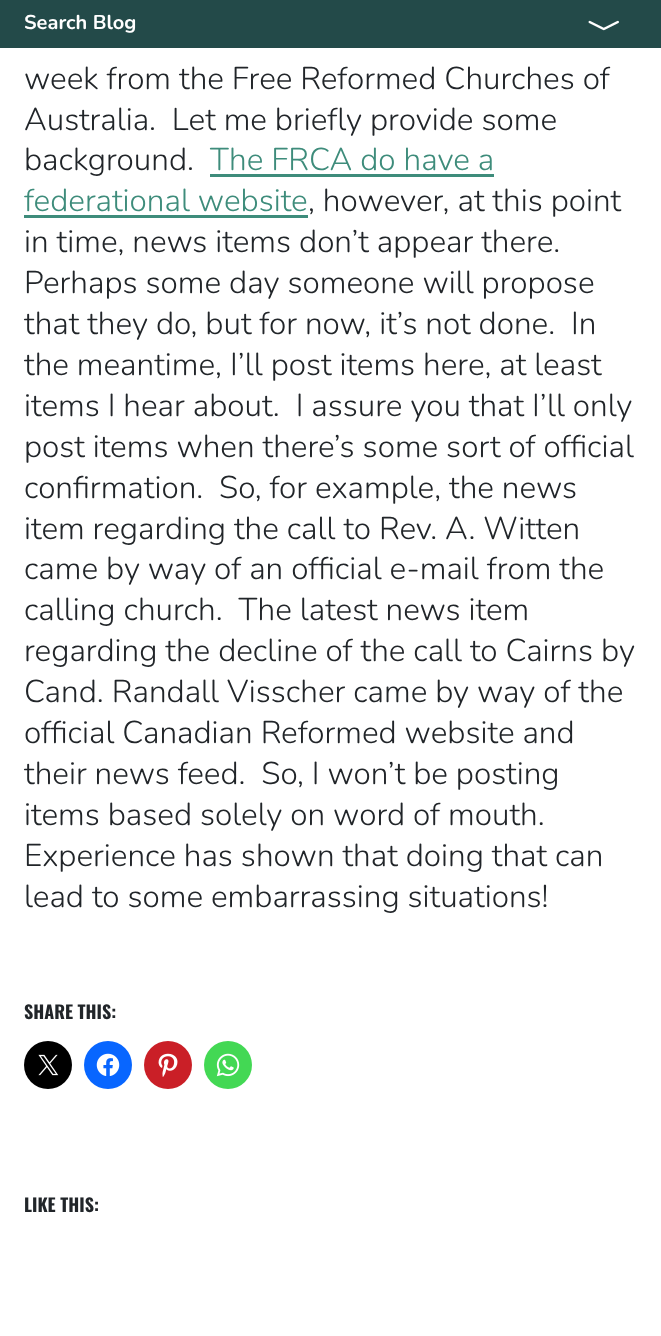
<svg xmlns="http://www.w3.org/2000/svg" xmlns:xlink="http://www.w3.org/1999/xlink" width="661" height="1336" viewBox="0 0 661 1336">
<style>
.cls-1{font:bold 20px Nunito;fill:#ffffff}
.cls-2{font:300 31.5px Nunito;fill:#212529}
.cls-3{font:300 31.5px Nunito;fill:#3e8c7b}
.cls-4{font:bold 18px Oswald;fill:#212529}
</style>
<rect width="100%" height="100%" fill="#ffffff"/>
<rect fill="#234a49" x="0" y="0" width="661" height="48"/>
<image xlink:href="image0.png" x="588" y="20" width="31" height="11"/>
<rect fill="#3e8c7b" x="210" y="174" width="284" height="3"/>
<rect fill="#3e8c7b" x="24" y="215" width="284" height="3"/>
<circle fill="#000000" cx="48" cy="1065" r="24"/>
<image xlink:href="image1.png" x="38" y="1054" width="21" height="22"/>
<circle fill="#0866ff" cx="108" cy="1065" r="24"/>
<image xlink:href="image2.png" x="96" y="1053" width="24" height="23"/>
<circle fill="#ca1f27" cx="168" cy="1065" r="24"/>
<image xlink:href="image3.png" x="158" y="1053" width="20" height="24"/>
<circle fill="#43d854" cx="228" cy="1065" r="24"/>
<image xlink:href="image4.png" x="216" y="1053" width="24" height="24"/>
<text class="cls-1" x="24" y="29">Search Blog</text>
<text class="cls-2" xml:space="preserve"><tspan x="24" y="89">week from the Free Reformed Churches of</tspan><tspan x="24" y="130">Australia.  Let me briefly provide some</tspan><tspan x="24" y="170">background.</tspan></text>
<text class="cls-3" x="210" y="170">The FRCA do have a</text>
<text class="cls-3" x="24" y="211">federational website</text>
<text class="cls-2" x="308" y="211">, however, at this point</text>
<text class="cls-2" xml:space="preserve"><tspan x="24" y="252">in time, news items don’t appear there.</tspan><tspan x="24" y="293">Perhaps some day someone will propose</tspan><tspan x="24" y="334">that they do, but for now, it’s not done.  In</tspan><tspan x="24" y="375">the meantime, I’ll post items here, at least</tspan><tspan x="24" y="416">items I hear about.  I assure you that I’ll only</tspan><tspan x="24" y="457">post items when there’s some sort of official</tspan><tspan x="24" y="498">confirmation.  So, for example, the news</tspan><tspan x="24" y="539">item regarding the call to Rev. A. Witten</tspan><tspan x="24" y="579">came by way of an official e-mail from the</tspan><tspan x="24" y="620">calling church.  The latest news item</tspan><tspan x="24" y="661">regarding the decline of the call to Cairns by</tspan><tspan x="24" y="702">Cand. Randall Visscher came by way of the</tspan><tspan x="24" y="743">official Canadian Reformed website and</tspan><tspan x="24" y="784">their news feed.  So, I won’t be posting</tspan><tspan x="24" y="825">items based solely on word of mouth.</tspan><tspan x="24" y="866">Experience has shown that doing that can</tspan><tspan x="24" y="907">lead to some embarrassing situations!</tspan></text>
<text class="cls-4" x="24" y="1019">SHARE THIS:</text>
<text class="cls-4" x="24" y="1212">LIKE THIS:</text>
</svg>
